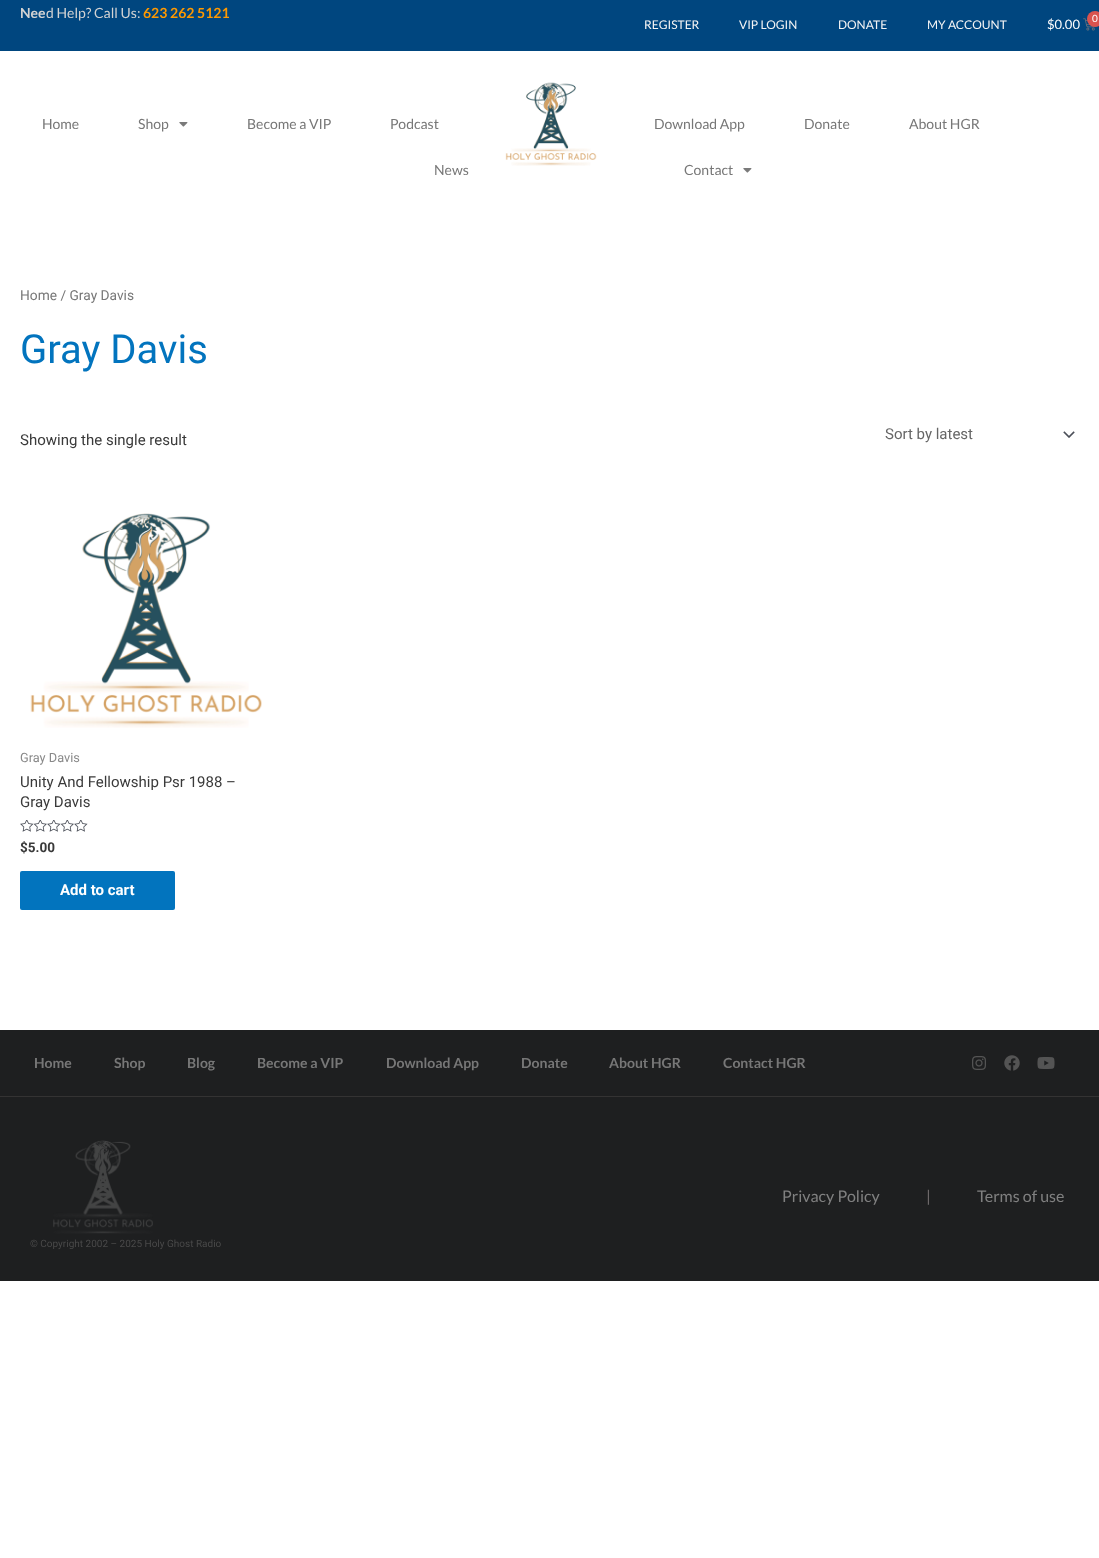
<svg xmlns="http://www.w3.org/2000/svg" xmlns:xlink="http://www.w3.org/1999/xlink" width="1099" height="1558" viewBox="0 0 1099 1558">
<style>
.cls-1{font:bold 14px Lato;fill:#d3d3d3}
.cls-2{font:14px Lato;fill:#d3d3d3}
.cls-3{font:bold 14px Lato;fill:#ff9900}
.cls-4{font:12px Lato;fill:#f5f5f5}
.cls-5{font:13px Lato;fill:#ffffff}
.cls-6{font:10px Lato;fill:#ffffff}
.cls-7{font:14px Lato;fill:#777777}
.cls-8{font:13.75px Roboto;fill:#777777}
.cls-9{font:40px Roboto;fill:#0274be}
.cls-10{font:15px Roboto;fill:#3a3a3a}
.cls-11{font:15px Roboto;fill:#666666}
.cls-12{font:12.75px Roboto;fill:#898989}
.cls-13{font:bold 13.5px Roboto;fill:#3a3a3a}
.cls-14{font:bold 15px Roboto;fill:#ffffff}
.cls-15{font:bold 14px Lato;fill:#777777}
.cls-16{font:16px Lato;fill:#808080}
.cls-17{font:16px Lato;fill:#736e6e}
.cls-18{font:10px Roboto;fill:#494949}
</style>
<rect width="100%" height="100%" fill="#ffffff"/>
<rect fill="#00467f" x="0" y="0" width="1099" height="51"/>
<image xlink:href="image0.png" x="1083" y="18" width="12" height="13"/>
<circle fill="#d9534f" cx="1095" cy="19" r="8"/>
<image xlink:href="image1.png" x="179" y="122" width="9" height="5"/>
<image xlink:href="image2.png" x="505" y="82" width="92" height="84"/>
<image xlink:href="image1.png" x="743" y="168" width="9" height="5"/>
<image xlink:href="image3.png" x="1063" y="431" width="12" height="7"/>
<image xlink:href="image4.png" x="30" y="513" width="232" height="215"/>
<image xlink:href="image5.png" x="20" y="820" width="68" height="12"/>
<rect fill="#0274be" x="20" y="871" width="155" height="39" rx="2"/>
<rect fill="#1e1f20" x="0" y="1030" width="1099" height="66"/>
<rect fill="#343333" x="0" y="1096" width="1099" height="1"/>
<image xlink:href="image6.png" x="972" y="1056" width="14" height="14"/>
<image xlink:href="image7.png" x="1004" y="1055" width="16" height="16"/>
<image xlink:href="image8.png" x="1037" y="1057" width="18" height="12"/>
<rect fill="#1e1f20" x="0" y="1097" width="1099" height="184"/>
<image xlink:href="image9.png" x="53" y="1140" width="100" height="94"/>
<text class="cls-1" x="20" y="18">Nee</text>
<text class="cls-2" x="46" y="18">d Help? Call Us:</text>
<text class="cls-3" x="143" y="18">623 262 5121</text>
<text class="cls-4" x="644" y="29">REGISTER</text>
<text class="cls-4" x="739" y="29">VIP LOGIN</text>
<text class="cls-4" x="838" y="29">DONATE</text>
<text class="cls-4" x="927" y="29">MY ACCOUNT</text>
<text class="cls-5" x="1047" y="29">$0.00</text>
<text class="cls-6" x="1092" y="22">0</text>
<text class="cls-7" x="42" y="129">Home</text>
<text class="cls-7" x="138" y="129">Shop</text>
<text class="cls-7" x="247" y="129">Become a VIP</text>
<text class="cls-7" x="390" y="129">Podcast</text>
<text class="cls-7" x="434" y="175">News</text>
<text class="cls-7" x="654" y="129">Download App</text>
<text class="cls-7" x="804" y="129">Donate</text>
<text class="cls-7" x="909" y="129">About HGR</text>
<text class="cls-7" x="684" y="175">Contact</text>
<text class="cls-8" x="20" y="300">Home / Gray Davis</text>
<text class="cls-9" x="20" y="363">Gray Davis</text>
<text class="cls-10" x="20" y="445">Showing the single result</text>
<text class="cls-11" x="885" y="439">Sort by latest</text>
<text class="cls-12" x="20" y="762">Gray Davis</text>
<text class="cls-10"><tspan x="20" y="787">Unity And Fellowship Psr 1988 –</tspan><tspan x="20" y="807">Gray Davis</tspan></text>
<text class="cls-13" x="20" y="852">$5.00</text>
<text class="cls-14" x="60" y="895">Add to cart</text>
<text class="cls-15" x="34" y="1068">Home</text>
<text class="cls-15" x="114" y="1068">Shop</text>
<text class="cls-15" x="187" y="1068">Blog</text>
<text class="cls-15" x="257" y="1068">Become a VIP</text>
<text class="cls-15" x="386" y="1068">Download App</text>
<text class="cls-15" x="521" y="1068">Donate</text>
<text class="cls-15" x="609" y="1068">About HGR</text>
<text class="cls-15" x="723" y="1068">Contact HGR</text>
<text class="cls-16" x="782" y="1202">Privacy Policy</text>
<text class="cls-17" x="926" y="1202">|</text>
<text class="cls-16" x="977" y="1202">Terms of use</text>
<text class="cls-18" x="30" y="1247">© Copyright 2002 – 2025 Holy Ghost Radio</text>
</svg>
